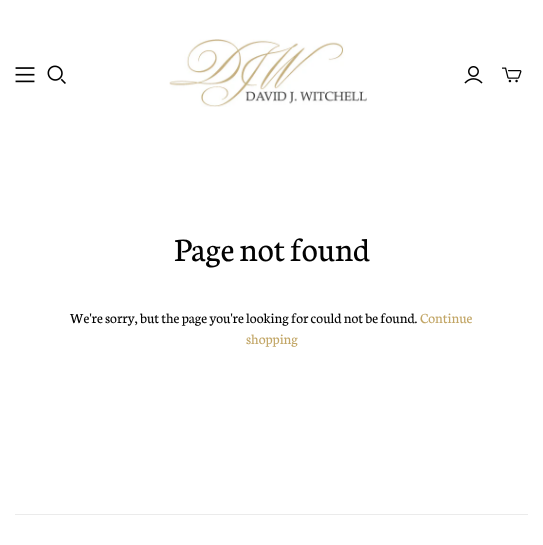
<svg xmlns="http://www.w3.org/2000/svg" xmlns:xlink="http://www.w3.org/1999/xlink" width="543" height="545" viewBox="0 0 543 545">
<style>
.cls-1{font:35px Neuton;fill:#020202}
.cls-2{font:15px Neuton;fill:#020202}
.cls-3{font:15px Neuton;fill:#c2a666}
</style>
<rect width="100%" height="100%" fill="#ffffff"/>
<image xlink:href="image0.png" x="169" y="39" width="198" height="68"/>
<image xlink:href="image1.png" x="15" y="67" width="20" height="16"/>
<image xlink:href="image2.png" x="47" y="65" width="19" height="19"/>
<image xlink:href="image3.png" x="464" y="66" width="19" height="18"/>
<image xlink:href="image4.png" x="502" y="67" width="20" height="16"/>
<rect fill="#ebebeb" x="15" y="514" width="513" height="1"/>
<text class="cls-1" x="174" y="261">Page not found</text>
<text class="cls-2" x="70" y="323">We're sorry, but the page you're looking for could not be found.</text>
<text class="cls-3" x="420" y="323">Continue</text>
<text class="cls-3" x="246" y="344">shopping</text>
</svg>
